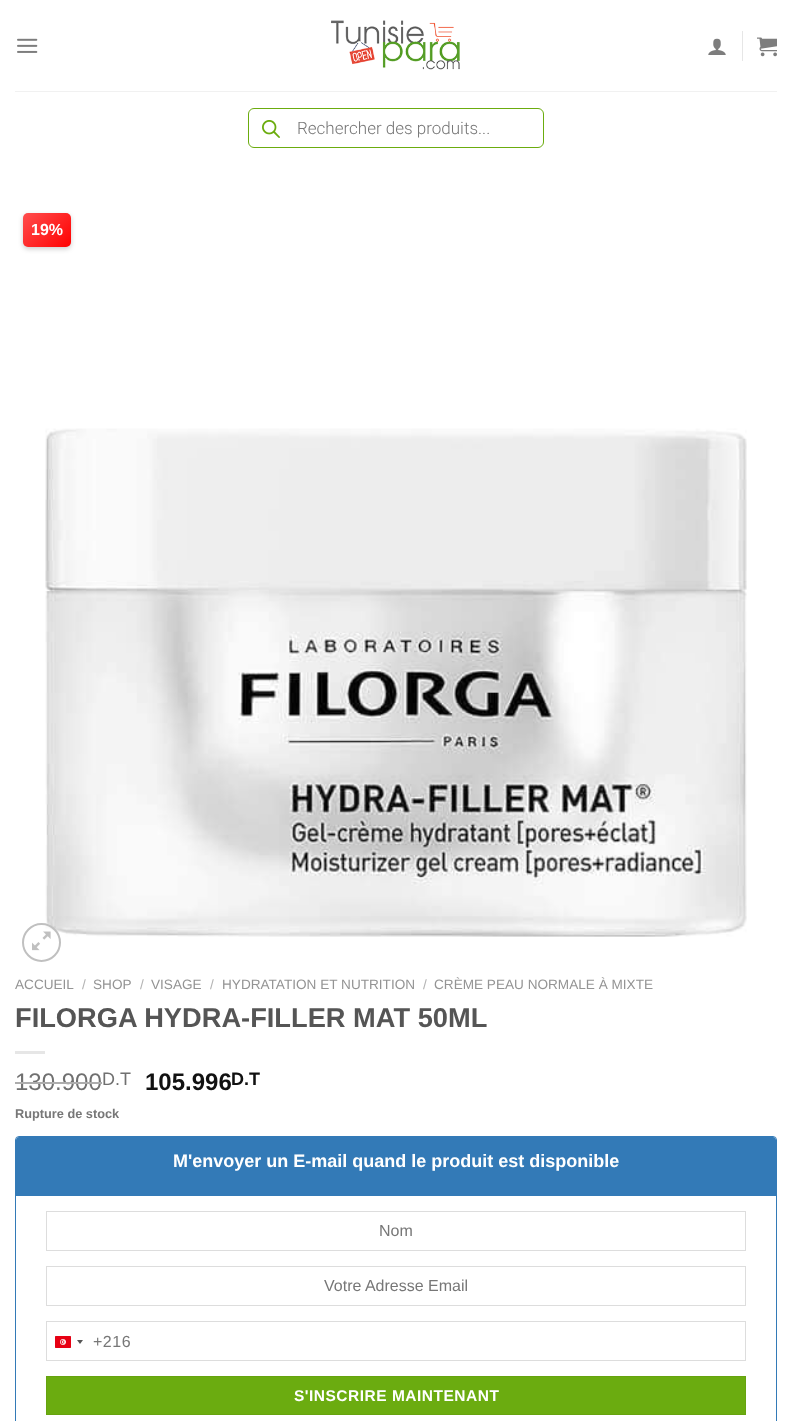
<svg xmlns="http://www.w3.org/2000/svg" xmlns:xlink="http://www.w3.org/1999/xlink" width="792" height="1421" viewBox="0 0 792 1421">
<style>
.cls-1{font:300 17px Roboto;fill:#777777}
.cls-2{font:bold 16px Liberation Sans;fill:#ffffff}
.cls-3{font:13.6px Liberation Sans;fill:#949494}
.cls-4{font:13.6px Liberation Sans;fill:#b2b2b2}
.cls-5{font:bold 27.25px Liberation Sans;fill:#555555}
.cls-6{font:24px Liberation Sans;fill:#707070}
.cls-7{font:18px Liberation Sans;fill:#707070}
.cls-8{font:bold 24px Liberation Sans;fill:#111111}
.cls-9{font:bold 18px Liberation Sans;fill:#111111}
.cls-10{font:bold 12.75px Liberation Sans;fill:#777777}
.cls-11{font:bold 18px Liberation Sans;fill:#ffffff}
.cls-12{font:16px Liberation Sans;fill:#777777}
.cls-13{font:16px Liberation Sans;letter-spacing:0.5px;fill:#777777}
.cls-14{font:bold 15.5px Liberation Sans;letter-spacing:0.5px;fill:#ffffff}
</style>
<defs>
<linearGradient id="g1" gradientUnits="userSpaceOnUse" x1="27" y1="210" x2="68" y2="251"><stop offset="0" stop-color="#ff4d4d"/><stop offset="1" stop-color="#ff0000"/></linearGradient>
</defs>
<rect width="100%" height="100%" fill="#ffffff"/>
<image xlink:href="image0.png" x="17" y="38" width="21" height="15"/>
<image xlink:href="image1.png" x="331" y="20" width="129" height="50"/>
<image xlink:href="image2.png" x="708" y="38" width="18" height="17"/>
<rect fill="#e6e6e6" x="742" y="31" width="1" height="30"/>
<image xlink:href="image3.png" x="757" y="37" width="20" height="20"/>
<rect fill="#f1f1f1" x="15" y="91" width="762" height="1"/>
<rect fill="none" stroke="#6bac0e" x="248.5" y="108.5" width="295" height="39" rx="5.5"/>
<image xlink:href="image4.png" x="262" y="120" width="18" height="18"/>
<rect fill="#000000" fill-opacity="0.2" filter="blur(2.5px)" x="23" y="215" width="48" height="34" rx="5"/>
<rect fill="url(#g1)" x="23" y="213" width="48" height="34" rx="5"/>
<image xlink:href="image5.png" x="45" y="428" width="702" height="509"/>
<circle fill="none" stroke="#c0c0c0" stroke-width="2" cx="41.5" cy="942.5" r="18.5"/>
<image xlink:href="image6.png" x="32" y="931" width="19" height="20"/>
<rect fill="#e6e6e6" x="15" y="1051" width="30" height="3"/>
<rect fill="none" stroke="#337ab7" x="15.5" y="1136.5" width="761" height="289" rx="3.5"/>
<path fill="#337ab7" d="M19 1137H773C774.5 1137 776 1138.5 776 1140V1196H16V1140C16 1138.5 17.5 1137 19 1137Z"/>
<rect fill="none" stroke="#dddddd" x="46.5" y="1211.5" width="699" height="39"/>
<rect fill="none" stroke="#dddddd" x="46.5" y="1266.5" width="699" height="39"/>
<rect fill="none" stroke="#dddddd" x="46.5" y="1321.5" width="699" height="39"/>
<rect fill="#888888" filter="blur(0.5px)" x="55" y="1336" width="16" height="12" rx="1"/>
<image xlink:href="image7.png" x="55" y="1336" width="16" height="12"/>
<path fill="#555555" d="M77 1340H83L80 1344Z"/>
<rect fill="#6bac10" stroke="#66a30f" x="46.5" y="1376.5" width="699" height="38"/>
<text class="cls-1" x="297" y="134">Rechercher des produits...</text>
<text class="cls-2" x="31" y="235">19%</text>
<text class="cls-3" x="15" y="989">ACCUEIL</text>
<text class="cls-4" x="82" y="989">/</text>
<text class="cls-3" x="93" y="989">SHOP</text>
<text class="cls-4" x="140" y="989">/</text>
<text class="cls-3" x="151" y="989">VISAGE</text>
<text class="cls-4" x="210" y="989">/</text>
<text class="cls-3" x="222" y="989">HYDRATATION ET NUTRITION</text>
<text class="cls-4" x="423" y="989">/</text>
<text class="cls-3" x="434" y="989">CRÈME PEAU NORMALE À MIXTE</text>
<text class="cls-5" x="15" y="1027">FILORGA HYDRA-FILLER MAT 50ML</text>
<text class="cls-6" x="15" y="1090">130.900</text>
<rect fill="#adadad" x="15" y="1082" width="87" height="2"/>
<text class="cls-7" x="102" y="1085">D.T</text>
<text class="cls-8" x="145" y="1090">105.996</text>
<text class="cls-9" x="231" y="1085">D.T</text>
<text class="cls-10" x="15" y="1118">Rupture de stock</text>
<text class="cls-11" x="173" y="1167">M'envoyer un E-mail quand le produit est disponible</text>
<text class="cls-12" x="379" y="1236">Nom</text>
<text class="cls-12" x="324" y="1291">Votre Adresse Email</text>
<text class="cls-13" x="93" y="1347">+216</text>
<text class="cls-14" x="294" y="1401">S'INSCRIRE MAINTENANT</text>
</svg>
